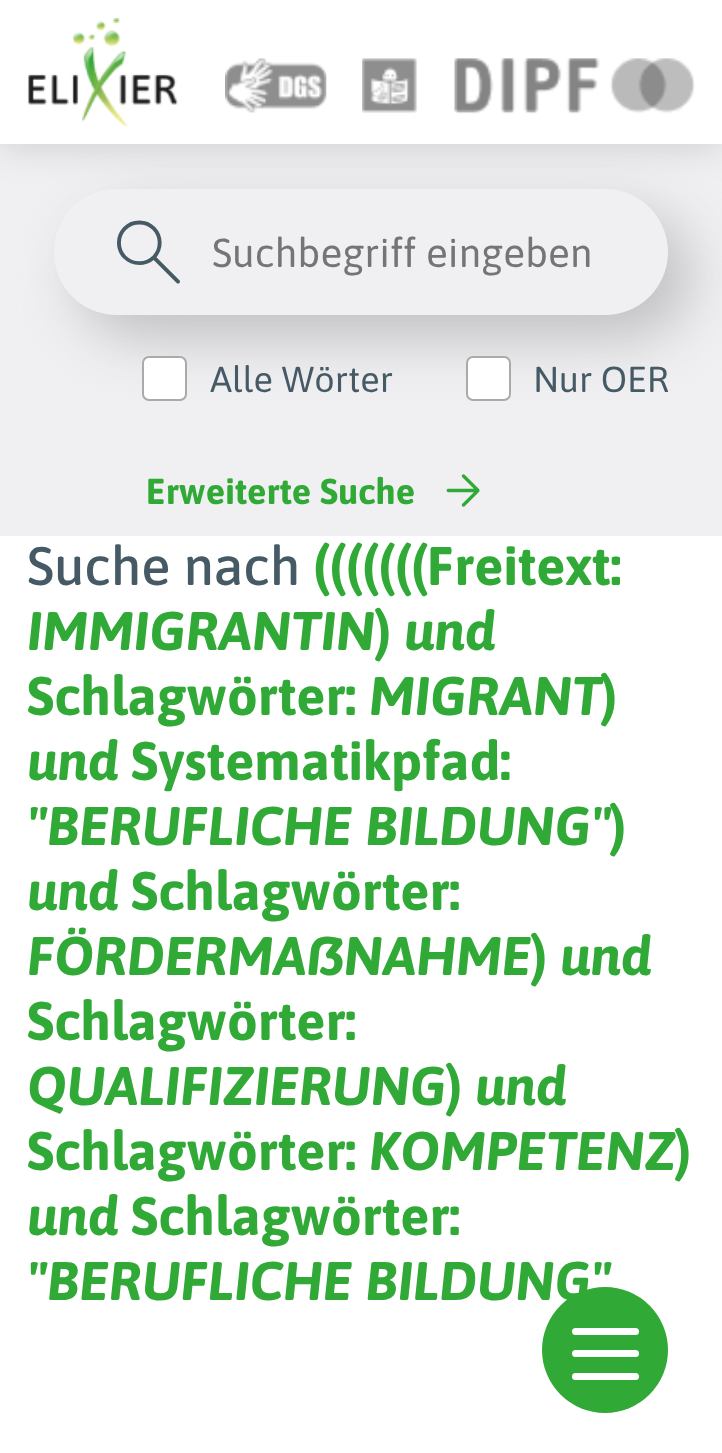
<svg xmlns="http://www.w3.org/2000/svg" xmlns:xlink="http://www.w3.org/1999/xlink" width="722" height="1453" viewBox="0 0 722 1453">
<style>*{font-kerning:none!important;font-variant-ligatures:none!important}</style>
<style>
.cls-1{font:40.5px Asap;fill:#757575}
.cls-2{font:36px Asap;fill:#455a64}
.cls-3{font:bold 36px Asap;fill:#30a936}
.cls-4{font:500 54.25px Asap;fill:#455a64}
.cls-5{font:900 54.25px Asap;fill:#30a936}
.cls-6{font:bold 54.25px Asap;fill:#30a936}
.cls-7{font:italic bold 54.25px Asap;fill:#30a936}
</style>
<defs>
<clipPath id="clip1"><path d="M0 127H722V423H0ZM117 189H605C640 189 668 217 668 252C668 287 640 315 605 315H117C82 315 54 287 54 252C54 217 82 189 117 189Z" clip-rule="evenodd"/></clipPath>
</defs>
<rect width="100%" height="100%" fill="#ffffff"/>
<rect fill="#f0f0f3" x="0" y="144" width="722" height="392"/>
<rect fill="#121212" fill-opacity="0.16" filter="blur(18px)" x="0" y="2" width="722" height="144"/>
<g clip-path="url(#clip1)">
<rect fill="#c0c0c2" filter="blur(28px)" x="77" y="212" width="614" height="126" rx="63"/>
</g>
<rect fill="#ffffff" x="0" y="0" width="722" height="144"/>
<image xlink:href="image0.png" x="27" y="18" width="151" height="108"/>
<image xlink:href="image1.png" x="225" y="58" width="102" height="55"/>
<image xlink:href="image2.png" x="362" y="58" width="55" height="55"/>
<image xlink:href="image3.png" x="454" y="58" width="241" height="56"/>
<image xlink:href="image4.png" x="117" y="220" width="63" height="64"/>
<rect fill="#ffffff" stroke="#aaaaaa" stroke-width="2" x="143" y="357" width="43" height="43" rx="6"/>
<rect fill="#ffffff" stroke="#aaaaaa" stroke-width="2" x="467" y="357" width="43" height="43" rx="6"/>
<image xlink:href="image5.png" x="446" y="474" width="34" height="33"/>
<circle fill="#30a936" cx="605" cy="1350" r="63"/>
<rect fill="#ffffff" x="572" y="1350" width="67" height="7" rx="3.5"/>
<rect fill="#ffffff" x="572" y="1328" width="67" height="7" rx="3.5"/>
<rect fill="#ffffff" x="572" y="1373" width="67" height="7" rx="3.5"/>
<text class="cls-1" x="212" y="267">Suchbegriff eingeben</text>
<text class="cls-2" x="210" y="392">Alle Wörter</text>
<text class="cls-2" x="533" y="392">Nur OER</text>
<text class="cls-3" x="146" y="504">Erweiterte Suche</text>
<text class="cls-4" x="27" y="585">Suche nach</text>
<text class="cls-5" x="313" y="585">(((((((</text>
<text class="cls-6" x="427" y="585">Freitext:</text>
<text class="cls-7" x="27" y="650">IMMIGRANTIN</text>
<text class="cls-5" x="375" y="650">)</text>
<text class="cls-7" x="404" y="650">und</text>
<text class="cls-6" x="27" y="715">Schlagwörter:</text>
<text class="cls-7" x="369" y="715">MIGRANT</text>
<text class="cls-5" x="601" y="715">)</text>
<text class="cls-7" x="27" y="780">und</text>
<text class="cls-6" x="131" y="780">Systematikpfad:</text>
<text class="cls-7" x="27" y="845">"BERUFLICHE BILDUNG"</text>
<text class="cls-5" x="610" y="845">)</text>
<text class="cls-7" x="27" y="910">und</text>
<text class="cls-6" x="131" y="910">Schlagwörter:</text>
<text class="cls-7" x="27" y="975">FÖRDERMAßNAHME</text>
<text class="cls-5" x="531" y="975">)</text>
<text class="cls-7" x="560" y="975">und</text>
<text class="cls-6" x="27" y="1040">Schlagwörter:</text>
<text class="cls-7" x="27" y="1105">QUALIFIZIERUNG</text>
<text class="cls-5" x="446" y="1105">)</text>
<text class="cls-7" x="475" y="1105">und</text>
<text class="cls-6" x="27" y="1170">Schlagwörter:</text>
<text class="cls-7" x="369" y="1170">KOMPETENZ</text>
<text class="cls-5" x="675" y="1170">)</text>
<text class="cls-7" x="27" y="1235">und</text>
<text class="cls-6" x="131" y="1235">Schlagwörter:</text>
<text class="cls-7" x="27" y="1300">"BERUFLICHE BILDUNG"</text>
</svg>
